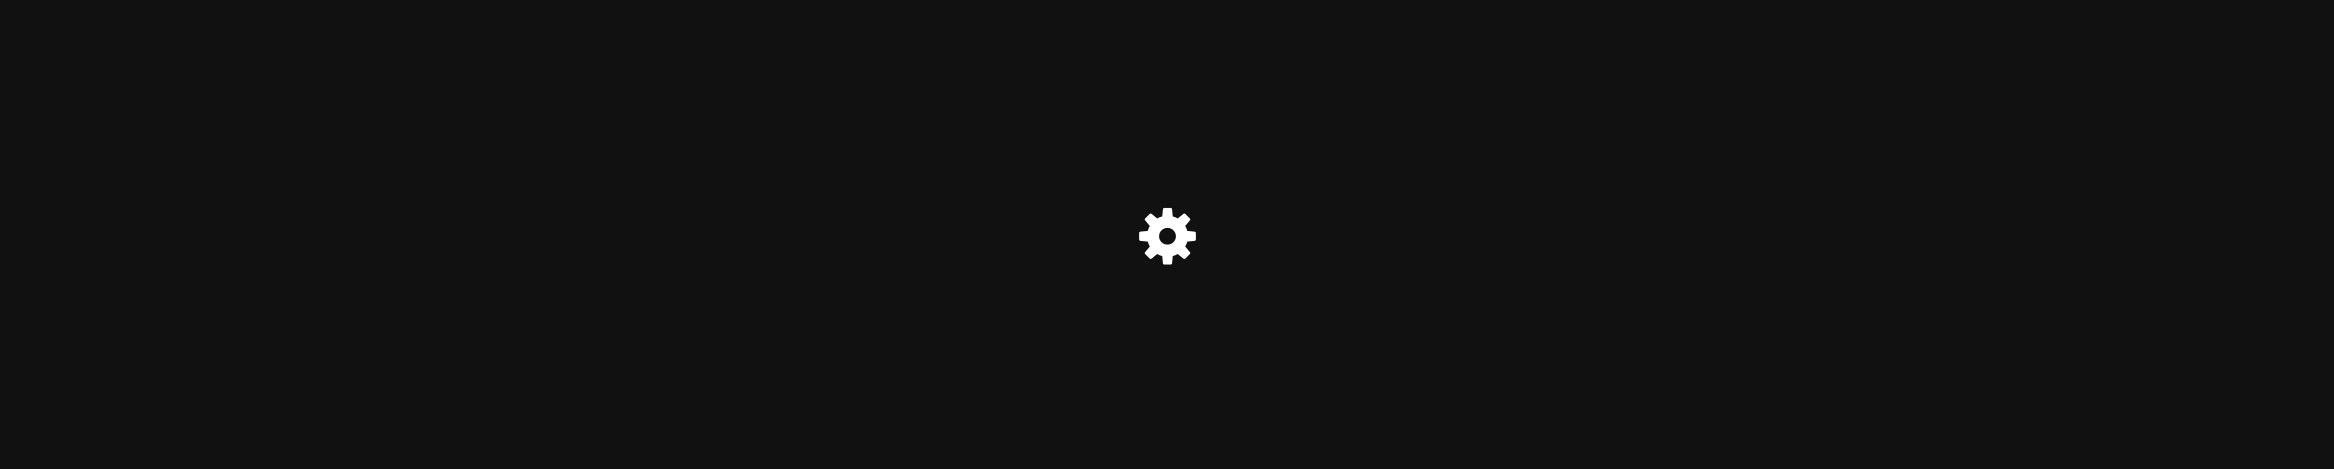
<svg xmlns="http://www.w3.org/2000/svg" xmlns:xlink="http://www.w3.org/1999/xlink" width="2334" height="469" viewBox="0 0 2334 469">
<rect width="100%" height="100%" fill="#111111"/>
<image xlink:href="image0.png" x="1139" y="207" width="57" height="58"/>
</svg>
